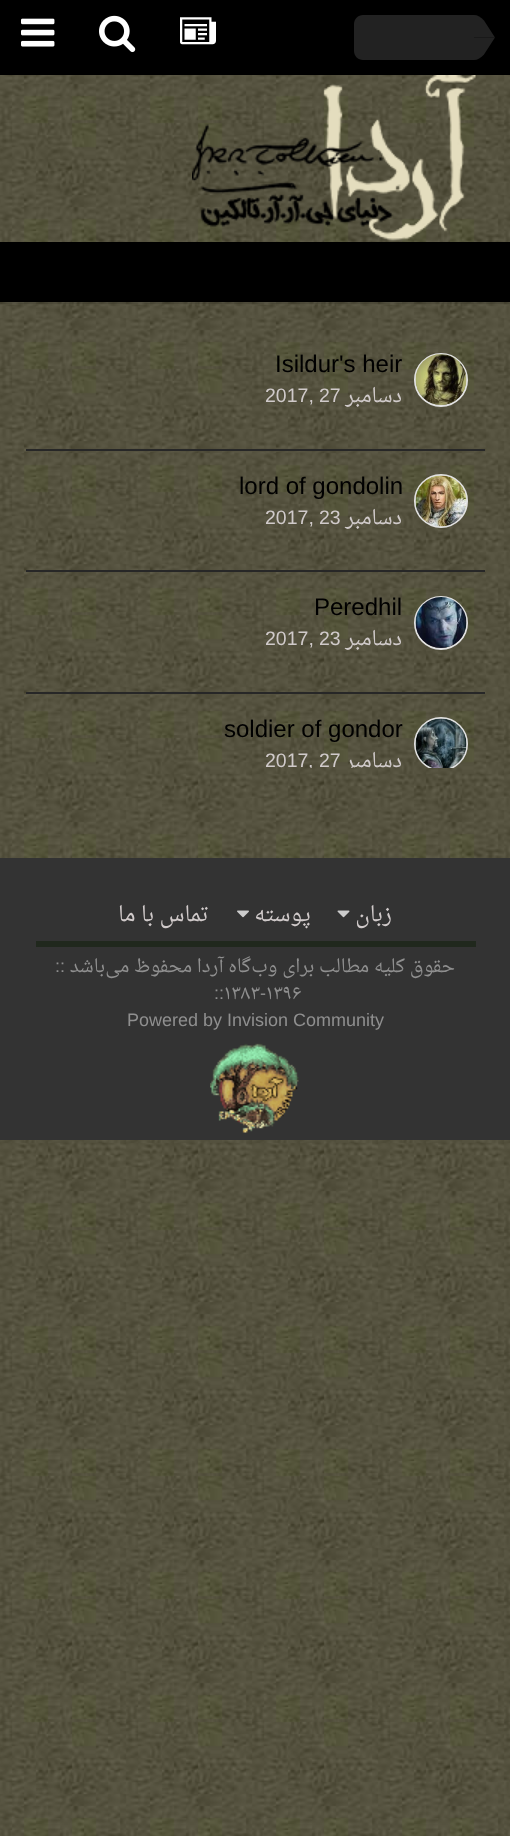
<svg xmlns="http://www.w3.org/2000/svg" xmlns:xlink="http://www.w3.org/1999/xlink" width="510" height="1836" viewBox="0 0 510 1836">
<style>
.cls-1{font:24px Liberation Sans;fill:#000000}
.cls-2{font:19.5px Liberation Sans;fill:#d0caca}
.cls-3{font:19.5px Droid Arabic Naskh;direction:rtl;fill:#d0caca}
.cls-4{font:21px Droid Arabic Naskh;direction:rtl;fill:#d0caca}
.cls-5{font:18px Liberation Sans;direction:rtl;fill:#8f8f8f}
.cls-6{font:18px Droid Arabic Naskh;direction:rtl;fill:#8f8f8f}
.cls-7{font:18px Liberation Sans;fill:#8f8f8f}
.cls-8{font:18px Droid Arabic Naskh;fill:#8f8f8f}
</style>
<defs>
<clipPath id="clip1"><rect x="15" y="318" width="480" height="450"/></clipPath>
</defs>
<rect width="100%" height="100%" fill="#ffffff"/>
<image xlink:href="image0.png" x="0" y="75" width="510" height="1761"/>
<rect fill="#000000" fill-opacity="0.1" x="0" y="302" width="510" height="2"/>
<rect fill="#000000" x="0" y="0" width="510" height="75"/>
<image xlink:href="image1.png" x="21" y="18" width="34" height="29"/>
<image xlink:href="image2.png" x="99" y="15" width="37" height="38"/>
<image xlink:href="image3.png" x="180" y="17" width="36" height="28"/>
<path fill="#222222" d="M363 15H474V60H363C358 60 354 56 354 51V24C354 19 358 15 363 15Z"/>
<path fill="#222222" d="M495 37.5H474V15C477.5 15 481 17 484 20.5Z"/>
<path fill="#222222" d="M484 54.5C481 58 477.5 60 474 60V37.5H495Z"/>
<image xlink:href="image4.png" x="192" y="75" width="284" height="167"/>
<rect fill="#000000" x="0" y="242" width="510" height="60"/>
<rect fill="#272727" x="26" y="449" width="459" height="2"/>
<circle fill="none" stroke="#e2e2e2" stroke-width="2" cx="441" cy="380" r="26"/>
<image xlink:href="image5.png" x="415" y="354" width="52" height="51"/>
<rect fill="#272727" x="26" y="570" width="459" height="2"/>
<circle fill="none" stroke="#e2e2e2" stroke-width="2" cx="441" cy="501" r="26"/>
<image xlink:href="image6.png" x="415" y="475" width="52" height="52"/>
<rect fill="#272727" x="26" y="692" width="459" height="2"/>
<circle fill="none" stroke="#e2e2e2" stroke-width="2" cx="441" cy="623" r="26"/>
<image xlink:href="image7.png" x="415" y="597" width="52" height="51"/>
<g clip-path="url(#clip1)">
<circle fill="none" stroke="#e2e2e2" stroke-width="2" cx="441" cy="744" r="26"/>
</g>
<image xlink:href="image8.png" x="415" y="718" width="52" height="50"/>
<rect fill="#333333" x="0" y="858" width="510" height="282"/>
<image xlink:href="image9.png" x="237" y="910" width="12" height="8"/>
<image xlink:href="image10.png" x="337" y="910" width="13" height="8"/>
<rect fill="#20281d" x="36" y="941" width="440" height="6"/>
<image xlink:href="image11.png" x="210" y="1043" width="89" height="90"/>
<text class="cls-1" x="275" y="372">Isildur's heir</text>
<text class="cls-2" x="265" y="402">2017,</text>
<text class="cls-2" x="319" y="402">27</text>
<text class="cls-3" x="402" y="402">دسامبر</text>
<text class="cls-1" x="239" y="494">lord of gondolin</text>
<text class="cls-2" x="265" y="524">2017,</text>
<text class="cls-2" x="319" y="524">23</text>
<text class="cls-3" x="402" y="524">دسامبر</text>
<text class="cls-1" x="314" y="615">Peredhil</text>
<text class="cls-2" x="265" y="645">2017,</text>
<text class="cls-2" x="319" y="645">23</text>
<text class="cls-3" x="402" y="645">دسامبر</text>
<text class="cls-1" x="224" y="737">soldier of gondor</text>
<text class="cls-2" x="265" y="767">2017</text>
<g clip-path="url(#clip1)">
<text class="cls-2" x="308" y="767">,</text>
</g>
<text class="cls-2" x="319" y="767">27</text>
<g clip-path="url(#clip1)">
<text class="cls-3" x="402" y="767">دسامبر</text>
</g>
<text class="cls-4" x="209" y="921">تماس با ما</text>
<text class="cls-4" x="311" y="921">پوسته</text>
<text class="cls-4" x="392" y="921">زبان</text>
<text class="cls-5" x="65" y="972">::</text>
<text class="cls-6" x="105" y="972">باشد</text>
<text class="cls-6" x="251" y="972">گاه آردا محفوظ می</text>
<text class="cls-6" x="455" y="972">حقوق کلیه مطالب برای وب</text>
<text class="cls-7" x="214" y="999">::</text>
<text class="cls-8" x="224" y="999">۱۳۸۳</text>
<text class="cls-7" x="260" y="999">-</text>
<text class="cls-8" x="266" y="999">۱۳۹۶</text>
<text class="cls-7" x="127" y="1026">Powered by Invision Community</text>
</svg>
